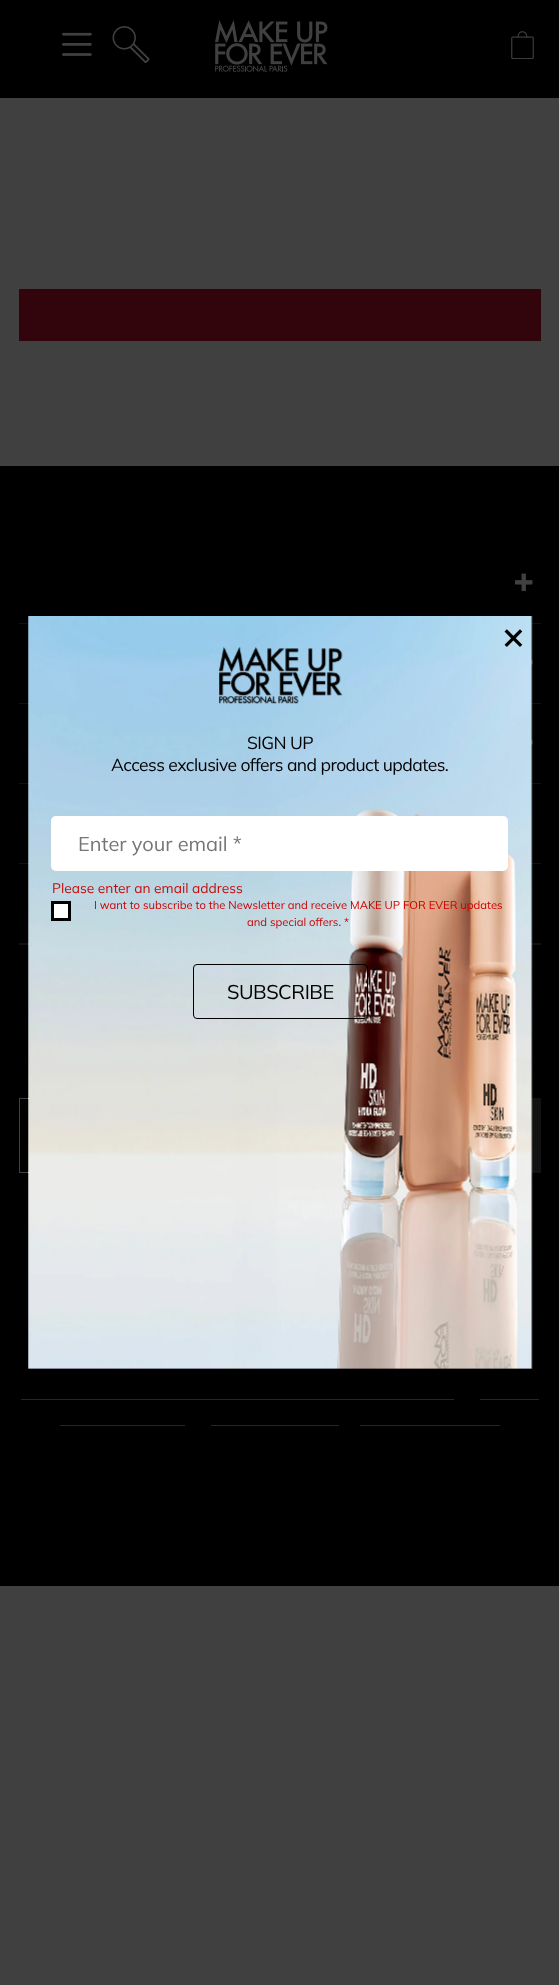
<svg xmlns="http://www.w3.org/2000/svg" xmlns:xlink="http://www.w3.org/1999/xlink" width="559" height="1985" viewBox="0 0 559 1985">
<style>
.cls-1{font:bold 38px Mulish;fill:#000000}
.cls-2{font:17.5px Mulish;letter-spacing:-0.55px;fill:#000000}
.cls-3{font:20px Mulish;fill:#757575}
.cls-4{font:13.75px Mulish;fill:#c50d08}
.cls-5{font:11.25px Mulish;fill:#cc0000}
.cls-6{font:20px Mulish;letter-spacing:-0.5px;fill:#000000}
</style>
<rect width="100%" height="100%" fill="#ffffff"/>
<rect fill="#c8102e" x="19" y="289" width="522" height="52"/>
<rect fill="#000000" x="0" y="466" width="559" height="1120"/>
<rect fill="#444444" x="19" y="943" width="522" height="2"/>
<rect fill="#444444" x="19" y="623" width="522" height="1"/>
<image xlink:href="image0.png" x="515" y="573" width="18" height="19"/>
<rect fill="#444444" x="19" y="703" width="522" height="1"/>
<image xlink:href="image1.png" x="531" y="660" width="2" height="5"/>
<rect fill="#444444" x="19" y="783" width="522" height="1"/>
<image xlink:href="image1.png" x="531" y="740" width="2" height="5"/>
<rect fill="#444444" x="19" y="863" width="522" height="1"/>
<rect fill="none" stroke="#ffffff" x="19.5" y="1098.5" width="356" height="74"/>
<rect fill="#4a4a4a" x="531" y="1098" width="10" height="75"/>
<rect fill="#979797" x="21" y="1399" width="433" height="1"/>
<rect fill="#979797" x="480" y="1399" width="59" height="1"/>
<rect fill="#979797" x="60" y="1425" width="125" height="1"/>
<rect fill="#979797" x="211" y="1425" width="128" height="1"/>
<rect fill="#979797" x="360" y="1425" width="140" height="1"/>
<rect fill="#000000" x="0" y="0" width="559" height="98"/>
<image xlink:href="image2.png" x="62" y="32" width="30" height="24"/>
<image xlink:href="image3.png" x="112" y="26" width="38" height="37"/>
<image xlink:href="image4.png" x="215" y="20" width="113" height="52"/>
<image xlink:href="image5.png" x="511" y="31" width="23" height="28"/>
<rect fill="none" stroke="#000000" stroke-opacity="0.75" stroke-width="12499" x="-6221.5" y="-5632.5" width="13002" height="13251" rx="6276.5"/>
<image xlink:href="image6.png" x="28" y="616" width="505" height="753"/>
<image xlink:href="image7.png" x="218" y="646" width="125" height="58"/>
<rect fill="#ffffff" x="51" y="816" width="457" height="55" rx="5"/>
<rect fill="#ffffff" stroke="#000000" stroke-width="3" x="52.5" y="902.5" width="17" height="17"/>
<rect fill="none" stroke="#000000" x="193.5" y="964.5" width="174" height="54" rx="3.5"/>
<text class="cls-1" x="502" y="649">×</text>
<text class="cls-2" x="247" y="749">SIGN UP</text>
<text class="cls-2" x="111" y="771">Access exclusive offers and product updates.</text>
<text class="cls-3" x="78" y="851">Enter your email *</text>
<text class="cls-4" x="52" y="893">Please enter an email address</text>
<text class="cls-5" x="94" y="909">I want to subscribe to the Newsletter and receive MAKE UP FOR EVER updates</text>
<text class="cls-5" x="247" y="926">and special offers. *</text>
<text class="cls-6" x="227" y="999">SUBSCRIBE</text>
</svg>
